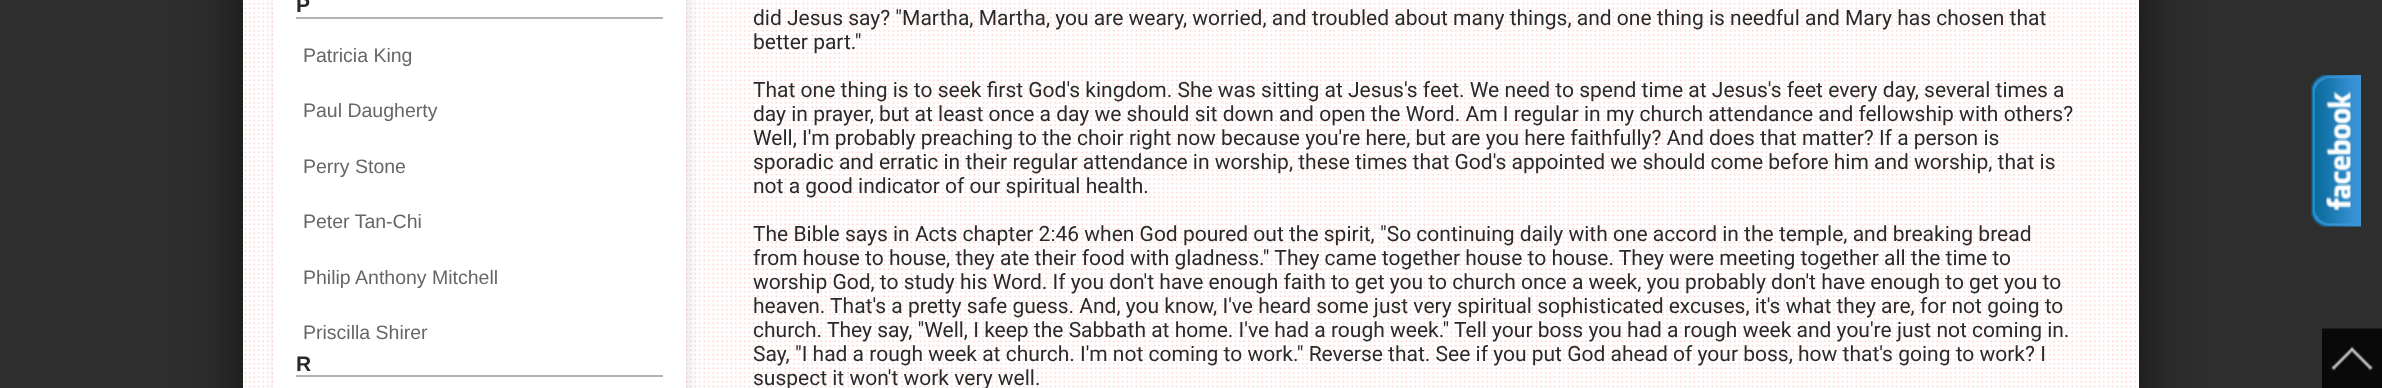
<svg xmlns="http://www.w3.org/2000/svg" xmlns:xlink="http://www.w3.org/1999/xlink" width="2382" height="388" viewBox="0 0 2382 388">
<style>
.cls-1{font:bold 21px Liberation Sans;fill:#2a2a2a}
.cls-2{font:19.5px Liberation Sans;fill:#666666}
.cls-3{font:21px Roboto;fill:#2a2a2a}
</style>
<rect width="100%" height="100%" fill="#2e2e2e"/>
<rect fill="#000000" fill-opacity="0.6" filter="blur(30px)" x="243" y="-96" width="1896" height="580" rx="6"/>
<rect fill="#ffffff" x="243" y="0" width="1896" height="388"/>
<image xlink:href="image0.png" x="244" y="0" width="1893" height="388"/>
<rect fill="#000000" fill-opacity="0.1" filter="blur(6px)" x="276" y="-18" width="413" height="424"/>
<rect fill="#ffffff" x="273" y="0" width="413" height="388"/>
<rect fill="#b3b3b3" x="296" y="17" width="367" height="2"/>
<rect fill="#b3b3b3" x="296" y="375" width="367" height="2"/>
<image xlink:href="image1.png" x="2311" y="75" width="50" height="152"/>
<image xlink:href="image2.png" x="2322" y="328" width="60" height="60"/>
<text class="cls-1" x="296" y="12">P</text>
<text class="cls-2" x="303" y="62">Patricia King</text>
<text class="cls-2" x="303" y="117">Paul Daugherty</text>
<text class="cls-2" x="303" y="173">Perry Stone</text>
<text class="cls-2" x="303" y="228">Peter Tan-Chi</text>
<text class="cls-2" x="303" y="284">Philip Anthony Mitchell</text>
<text class="cls-2" x="303" y="339">Priscilla Shirer</text>
<text class="cls-1" x="296" y="371">R</text>
<text class="cls-3"><tspan x="753" y="25">did Jesus say? "Martha, Martha, you are weary, worried, and troubled about many things, and one thing is needful and Mary has chosen that</tspan><tspan x="753" y="49">better part."</tspan></text>
<text class="cls-3"><tspan x="753" y="97">That one thing is to seek first God's kingdom. She was sitting at Jesus's feet. We need to spend time at Jesus's feet every day, several times a</tspan><tspan x="753" y="121">day in prayer, but at least once a day we should sit down and open the Word. Am I regular in my church attendance and fellowship with others?</tspan><tspan x="753" y="145">Well, I'm probably preaching to the choir right now because you're here, but are you here faithfully? And does that matter? If a person is</tspan><tspan x="753" y="169">sporadic and erratic in their regular attendance in worship, these times that God's appointed we should come before him and worship, that is</tspan><tspan x="753" y="193">not a good indicator of our spiritual health.</tspan></text>
<text class="cls-3"><tspan x="753" y="241">The Bible says in Acts chapter 2:46 when God poured out the spirit, "So continuing daily with one accord in the temple, and breaking bread</tspan><tspan x="753" y="265">from house to house, they ate their food with gladness." They came together house to house. They were meeting together all the time to</tspan><tspan x="753" y="289">worship God, to study his Word. If you don't have enough faith to get you to church once a week, you probably don't have enough to get you to</tspan><tspan x="753" y="313">heaven. That's a pretty safe guess. And, you know, I've heard some just very spiritual sophisticated excuses, it's what they are, for not going to</tspan><tspan x="753" y="337">church. They say, "Well, I keep the Sabbath at home. I've had a rough week." Tell your boss you had a rough week and you're just not coming in.</tspan><tspan x="753" y="361">Say, "I had a rough week at church. I'm not coming to work." Reverse that. See if you put God ahead of your boss, how that's going to work? I</tspan><tspan x="753" y="385">suspect it won't work very well.</tspan></text>
</svg>
